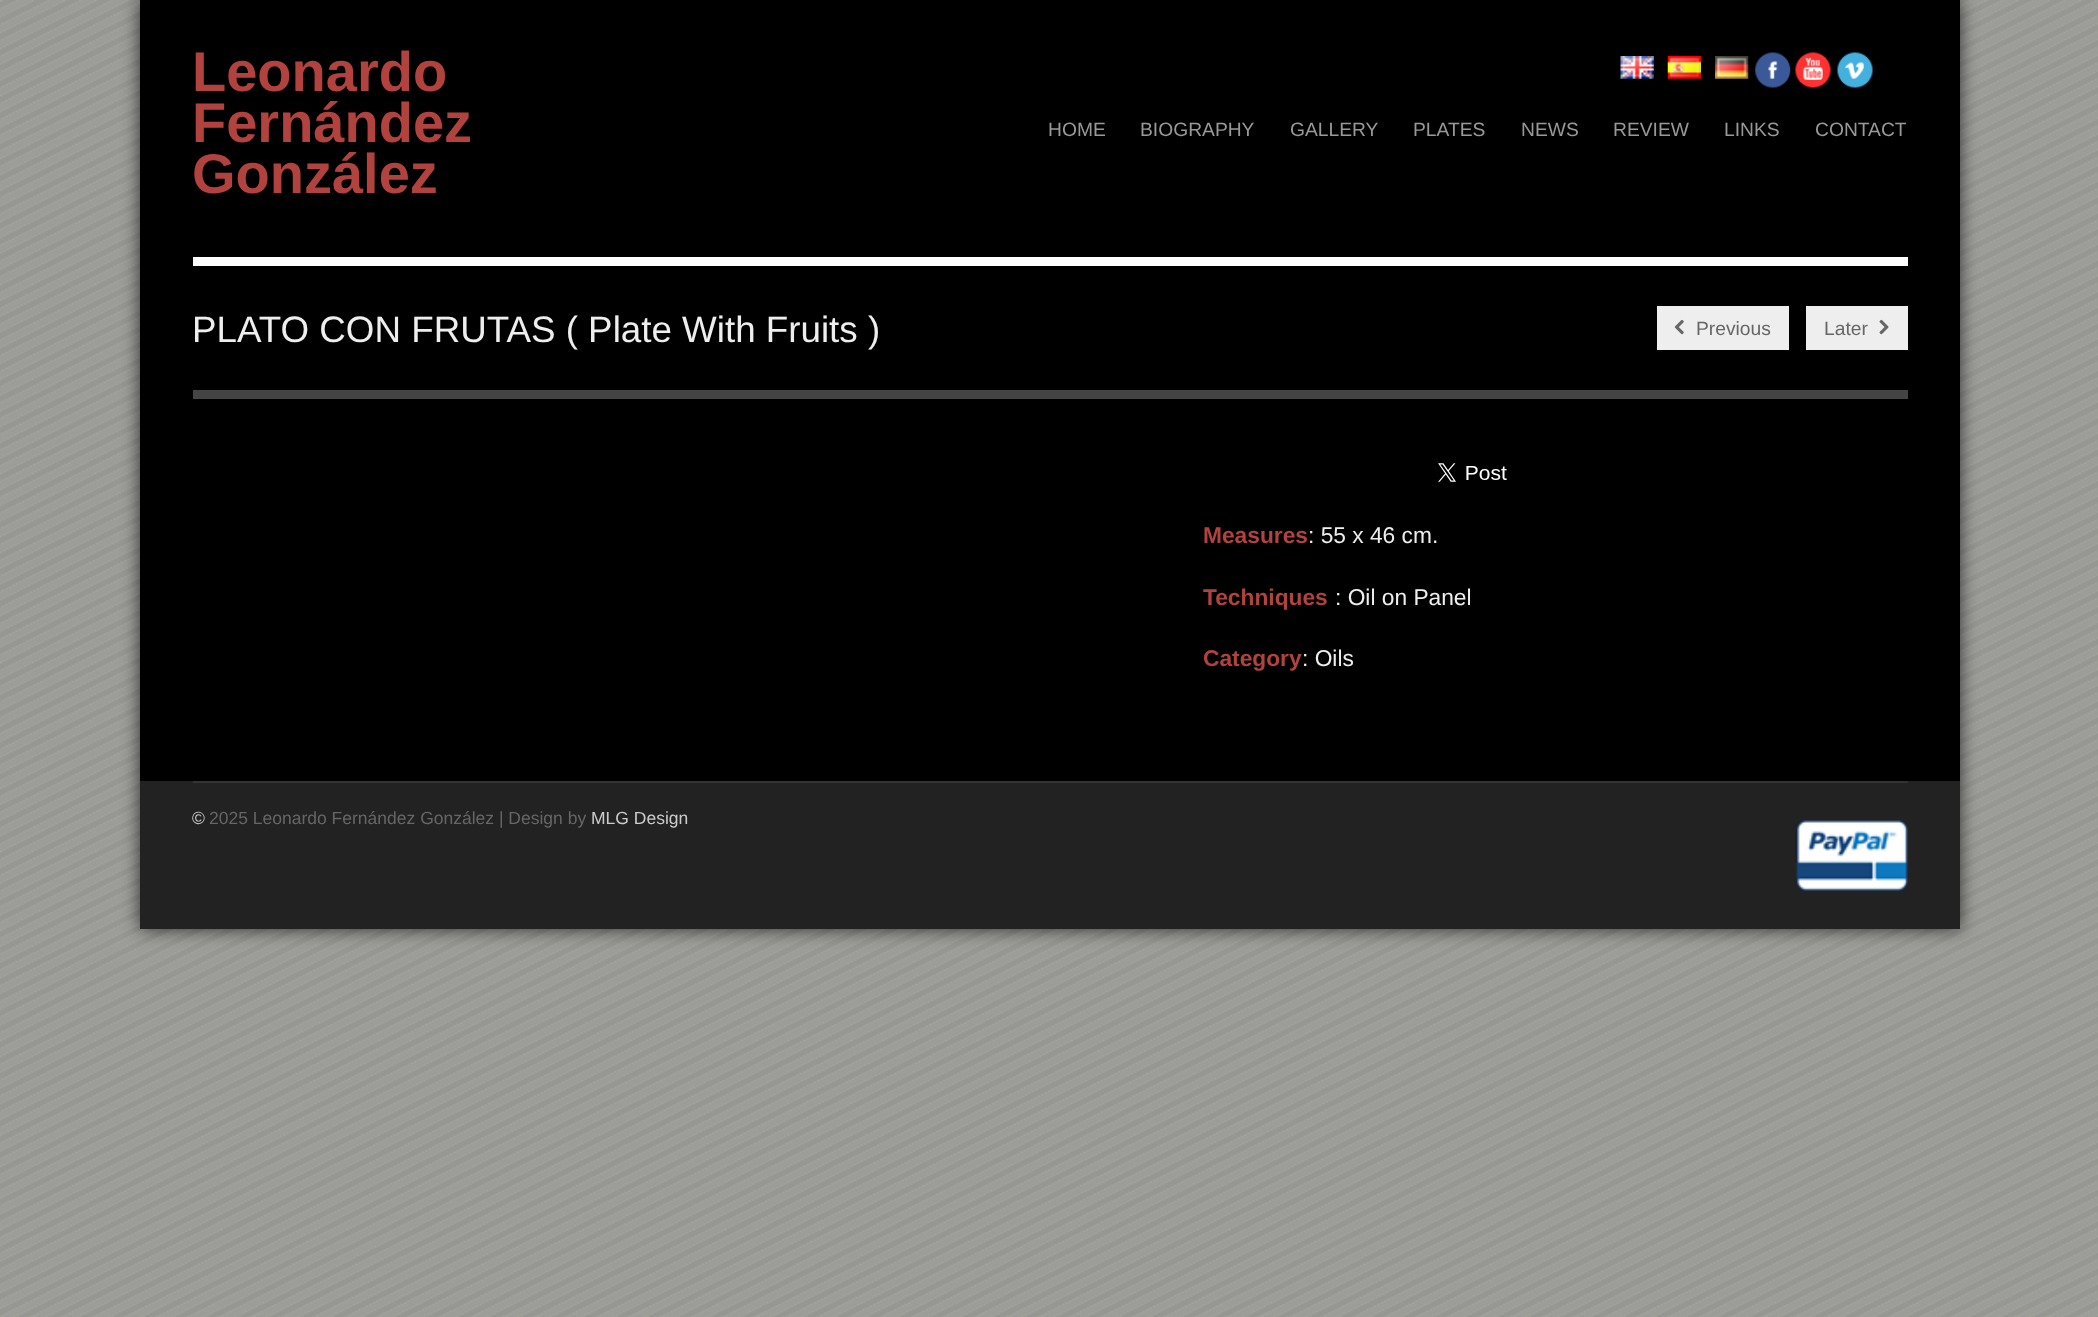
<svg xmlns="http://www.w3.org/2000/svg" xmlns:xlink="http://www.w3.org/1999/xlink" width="2098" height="1317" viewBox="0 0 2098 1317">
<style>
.cls-1{font:bold 56px Liberation Sans;fill:#b2423e}
.cls-2{font:19.25px Liberation Sans;fill:#999999}
.cls-3{font:36.75px Liberation Sans;fill:#eeeeee}
.cls-4{font:19.25px Liberation Sans;fill:#666666}
.cls-5{font:bold 22.75px Liberation Sans;fill:#b2423e}
.cls-6{font:22.75px Liberation Sans;fill:#eeeeee}
.cls-7{font:17.5px Liberation Sans;fill:#cccccc}
.cls-8{font:17.5px Liberation Sans;fill:#666666}
</style>
<rect width="100%" height="100%" fill="#ffffff"/>
<image xlink:href="image0.png" x="0" y="0" width="2098" height="1317"/>
<rect fill="#000000" fill-opacity="0.7" filter="blur(9px)" x="140" y="0" width="1820" height="929"/>
<rect fill="#000000" x="140" y="0" width="1820" height="781"/>
<rect fill="#ffffff" x="193" y="257" width="1715" height="9"/>
<image xlink:href="image1.png" x="1620" y="56" width="34" height="23"/>
<image xlink:href="image2.png" x="1667" y="56" width="34" height="23"/>
<image xlink:href="image3.png" x="1715" y="56" width="34" height="23"/>
<image xlink:href="image4.png" x="1755" y="52" width="36" height="36"/>
<image xlink:href="image5.png" x="1795" y="52" width="36" height="36"/>
<image xlink:href="image6.png" x="1837" y="52" width="36" height="36"/>
<rect fill="#444444" x="193" y="390" width="1715" height="9"/>
<rect fill="#eeeeee" x="1657" y="306" width="132" height="44"/>
<image xlink:href="image7.png" x="1674" y="319" width="10" height="16"/>
<rect fill="#eeeeee" x="1806" y="306" width="102" height="44"/>
<image xlink:href="image8.png" x="1879" y="319" width="10" height="16"/>
<image xlink:href="image9.png" x="1438" y="463" width="69" height="19"/>
<rect fill="#222222" x="140" y="781" width="1820" height="148"/>
<rect fill="#333333" x="193" y="781" width="1715" height="2"/>
<image xlink:href="image10.png" x="1795" y="820" width="113" height="72"/>
<text class="cls-1"><tspan x="192" y="91">Leonardo</tspan><tspan x="192" y="142">Fernández</tspan><tspan x="192" y="193">González</tspan></text>
<text class="cls-2" x="1048" y="136">HOME</text>
<text class="cls-2" x="1140" y="136">BIOGRAPHY</text>
<text class="cls-2" x="1290" y="136">GALLERY</text>
<text class="cls-2" x="1413" y="136">PLATES</text>
<text class="cls-2" x="1521" y="136">NEWS</text>
<text class="cls-2" x="1613" y="136">REVIEW</text>
<text class="cls-2" x="1724" y="136">LINKS</text>
<text class="cls-2" x="1815" y="136">CONTACT</text>
<text class="cls-3" x="192" y="342">PLATO CON FRUTAS ( Plate With Fruits )</text>
<text class="cls-4" x="1696" y="335">Previous</text>
<text class="cls-4" x="1824" y="335">Later</text>
<text class="cls-5" x="1203" y="543">Measures</text>
<text class="cls-6" x="1308" y="543">: 55 x 46 cm.</text>
<text class="cls-5" x="1203" y="605">Techniques</text>
<text class="cls-6" x="1335" y="605">: Oil on Panel</text>
<text class="cls-5" x="1203" y="666">Category</text>
<text class="cls-6" x="1302" y="666">: Oils</text>
<text class="cls-7" x="192" y="824">©</text>
<text class="cls-8" x="209" y="824">2025 Leonardo Fernández González | Design by</text>
<text class="cls-7" x="591" y="824">MLG Design</text>
</svg>
